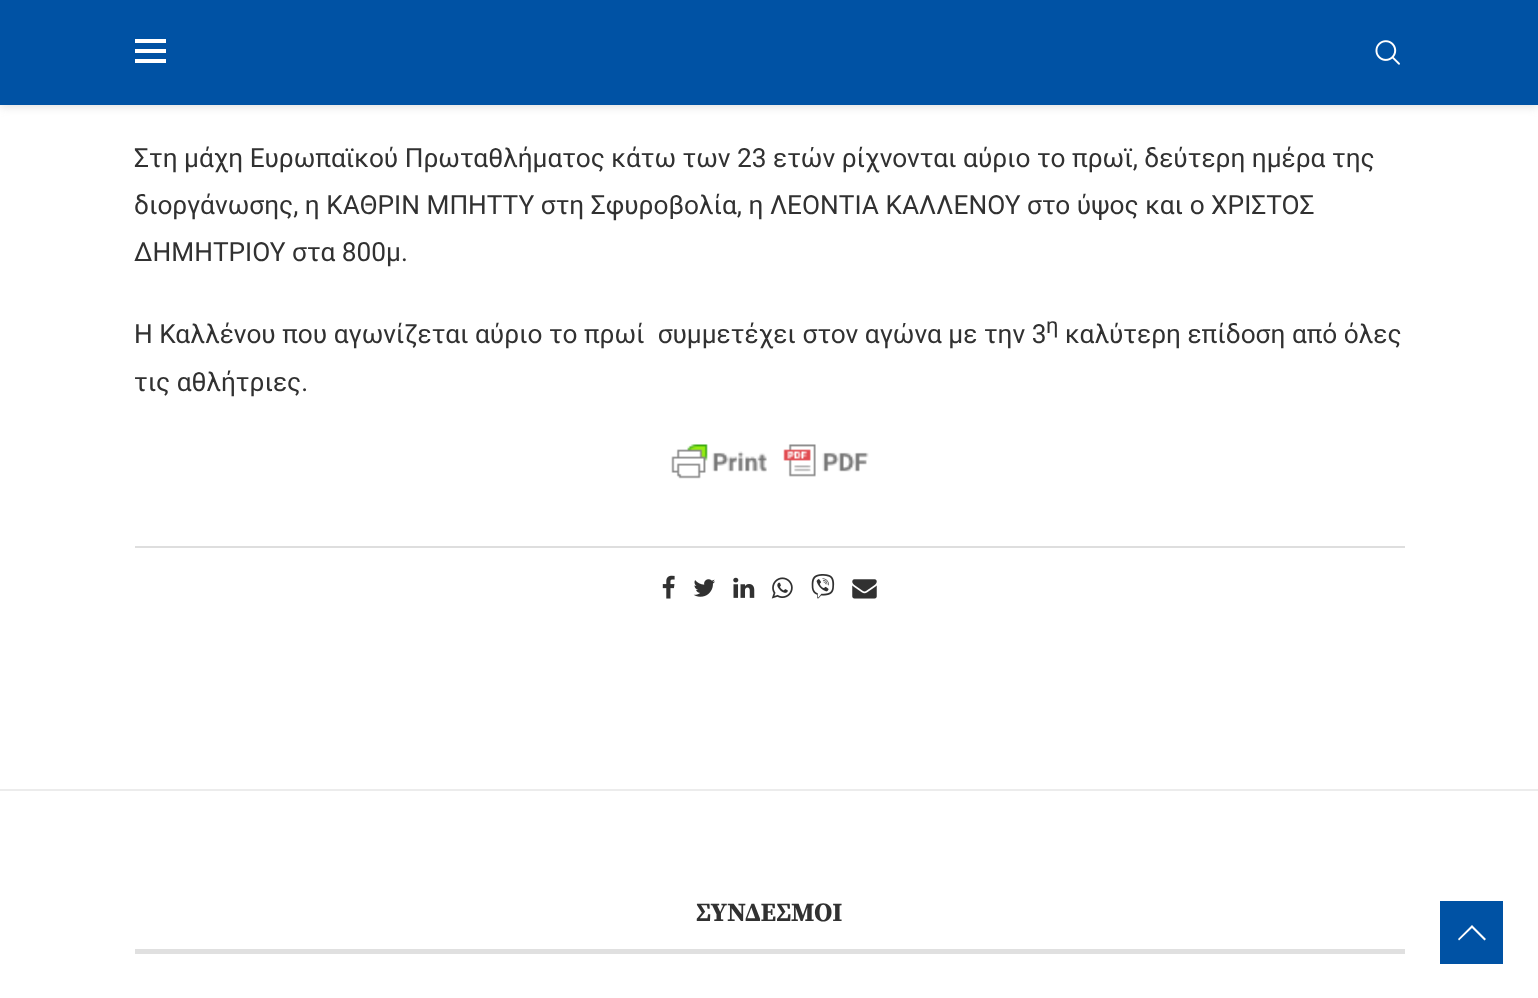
<svg xmlns="http://www.w3.org/2000/svg" xmlns:xlink="http://www.w3.org/1999/xlink" width="1538" height="998" viewBox="0 0 1538 998">
<style>
.cls-1{font:26.25px Roboto;fill:#313131}
.cls-2{font:22px Roboto;fill:#313131}
.cls-3{font:bold 26.25px Source Serif Pro;fill:#313131}
</style>
<rect width="100%" height="100%" fill="#ffffff"/>
<rect fill="#bebebe" fill-opacity="0.46" filter="blur(4.5px)" x="0" y="2" width="1538" height="105"/>
<rect fill="#0052a4" x="0" y="0" width="1538" height="105"/>
<rect fill="#ffffff" x="135" y="39" width="31" height="4"/>
<rect fill="#ffffff" x="135" y="49" width="31" height="4"/>
<rect fill="#ffffff" x="135" y="59" width="31" height="4"/>
<image xlink:href="image0.png" x="1375" y="40" width="25" height="25"/>
<image xlink:href="image1.png" x="671" y="444" width="198" height="35"/>
<rect fill="#dedede" x="135" y="546" width="1270" height="2"/>
<image xlink:href="image2.png" x="662" y="575" width="13" height="24"/>
<image xlink:href="image3.png" x="693" y="579" width="22" height="18"/>
<image xlink:href="image4.png" x="733" y="577" width="22" height="21"/>
<image xlink:href="image5.png" x="771" y="577" width="22" height="22"/>
<image xlink:href="image6.png" x="811" y="574" width="24" height="25"/>
<image xlink:href="image7.png" x="852" y="579" width="25" height="20"/>
<rect fill="#ececec" x="0" y="789" width="1538" height="2"/>
<rect fill="#e0e0e0" x="135" y="949" width="1270" height="5"/>
<rect fill="#0052a4" x="1440" y="901" width="63" height="63"/>
<path fill="#ffffff" d="M1472 925L1458 939L1459 940.5L1472 928L1484.5 940.5L1486 939Z"/>
<text class="cls-1"><tspan x="134" y="167">Στη μάχη Ευρωπαϊκού Πρωταθλήματος κάτω των 23 ετών ρίχνονται αύριο το πρωϊ, δεύτερη ημέρα της</tspan><tspan x="134" y="214">διοργάνωσης, η ΚΑΘΡΙΝ ΜΠΗΤΤΥ στη Σφυροβολία, η ΛΕΟΝΤΙΑ ΚΑΛΛΕΝΟΥ στο ύψος και ο ΧΡΙΣΤΟΣ</tspan><tspan x="134" y="261">ΔΗΜΗΤΡΙΟΥ στα 800μ.</tspan></text>
<text class="cls-1" xml:space="preserve" x="134" y="343">Η Καλλένου που αγωνίζεται αύριο το πρωί  συμμετέχει στον αγώνα με την 3</text>
<text class="cls-2" x="1046" y="333">η</text>
<text class="cls-1" x="1065" y="343">καλύτερη επίδοση από όλες</text>
<text class="cls-1" x="134" y="391">τις αθλήτριες.</text>
<text class="cls-3" x="696" y="921">ΣΥΝΔΕΣΜΟΙ</text>
</svg>
